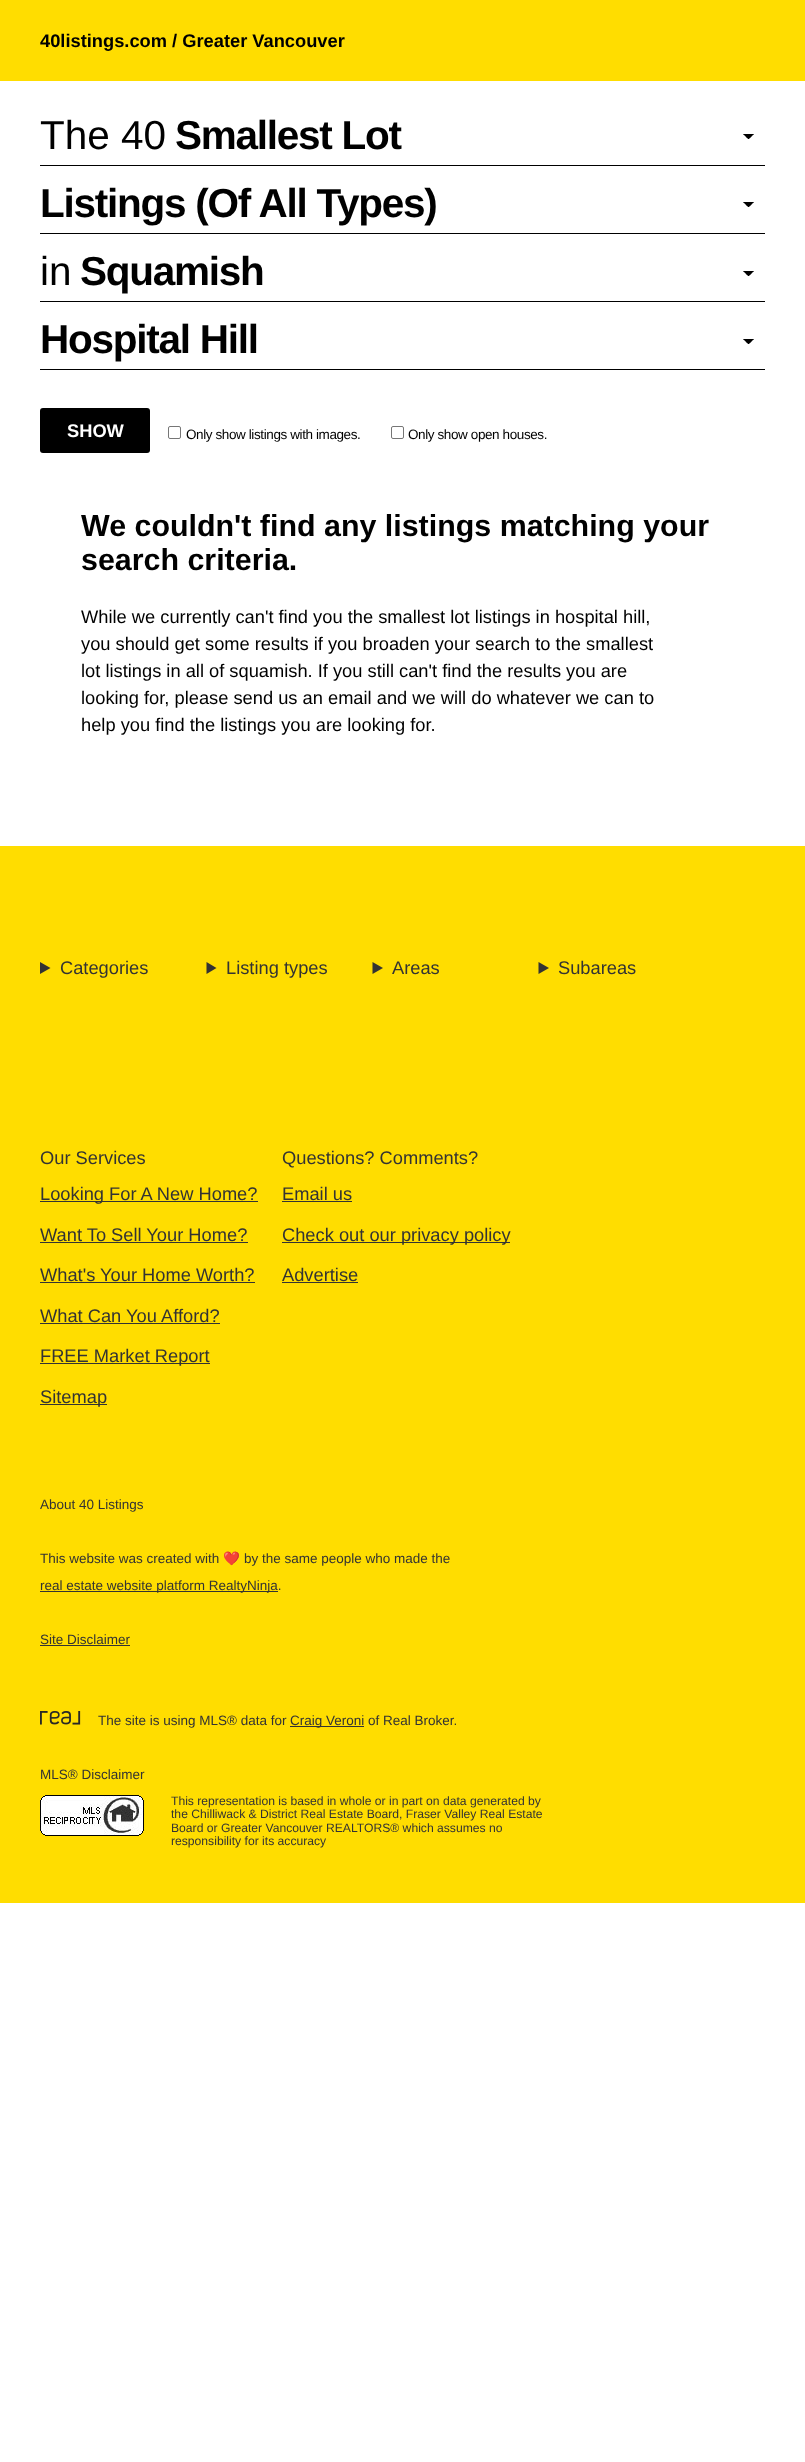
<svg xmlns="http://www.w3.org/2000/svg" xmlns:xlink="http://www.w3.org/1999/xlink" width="805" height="2462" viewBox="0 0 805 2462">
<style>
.cls-1{font:bold 18.3px Liberation Sans;fill:#000000}
.cls-2{font:40.5px Liberation Sans;fill:#000000}
.cls-3{font:bold 40.5px Liberation Sans;letter-spacing:-1.25px;fill:#000000}
.cls-4{font:bold 18.3px Liberation Sans;fill:#ffffff}
.cls-5{font:13.5px Liberation Sans;letter-spacing:-0.4px;fill:#000000}
.cls-6{font:bold 30.4px Liberation Sans;fill:#000000}
.cls-7{font:18.3px Liberation Sans;fill:#000000}
.cls-8{font:18.3px Liberation Sans;fill:#333333}
.cls-9{font:13.5px Liberation Sans;fill:#333333}
.cls-10{font:13.5px Noto Color Emoji;fill:#333333}
.cls-11{font:12.15px Liberation Sans;fill:#333333}
</style>
<rect width="100%" height="100%" fill="#ffffff"/>
<rect fill="#ffdd00" x="0" y="0" width="805" height="81"/>
<image xlink:href="image0.png" x="743" y="134" width="11" height="5"/>
<rect fill="#000000" x="40" y="165" width="725" height="1"/>
<image xlink:href="image0.png" x="743" y="202" width="11" height="5"/>
<rect fill="#000000" x="40" y="233" width="725" height="1"/>
<image xlink:href="image0.png" x="743" y="271" width="11" height="5"/>
<rect fill="#000000" x="40" y="301" width="725" height="1"/>
<image xlink:href="image0.png" x="743" y="339" width="11" height="5"/>
<rect fill="#000000" x="40" y="369" width="725" height="1"/>
<rect fill="#000000" x="40" y="408" width="110" height="45" rx="3"/>
<rect fill="none" stroke="#767676" x="168.5" y="426.5" width="12" height="12" rx="1.5"/>
<rect fill="none" stroke="#767676" x="391.5" y="426.5" width="12" height="12" rx="1.5"/>
<rect fill="#ffdd00" x="0" y="846" width="805" height="1057"/>
<path fill="#333333" d="M40 962L50.5 968L40 974Z"/>
<path fill="#333333" d="M206.5 962L216.5 968L206.5 974Z"/>
<path fill="#333333" d="M372.5 962L383 968L372.5 974Z"/>
<path fill="#333333" d="M538.5 962L549 968L538.5 974Z"/>
<rect fill="#333333" x="40" y="1201" width="218" height="1"/>
<rect fill="#333333" x="40" y="1242" width="208" height="1"/>
<rect fill="#333333" x="40" y="1282" width="215" height="1"/>
<rect fill="#333333" x="40" y="1323" width="180" height="1"/>
<rect fill="#333333" x="40" y="1363" width="170" height="1"/>
<rect fill="#333333" x="40" y="1404" width="67" height="1"/>
<rect fill="#333333" x="282" y="1201" width="70" height="1"/>
<rect fill="#333333" x="282" y="1242" width="228" height="1"/>
<rect fill="#333333" x="282" y="1282" width="76" height="1"/>
<rect fill="#333333" x="40" y="1591" width="238" height="1"/>
<rect fill="#333333" x="40" y="1645" width="90" height="1"/>
<image xlink:href="image1.png" x="40" y="1711" width="41" height="14"/>
<rect fill="#333333" x="290" y="1726" width="74" height="1"/>
<image xlink:href="image2.png" x="40" y="1795" width="104" height="41"/>
<text class="cls-1" x="40" y="47">40listings.com / Greater Vancouver</text>
<text class="cls-2" x="40" y="149">The 40</text>
<text class="cls-3" x="175" y="149">Smallest Lot</text>
<text class="cls-3" x="40" y="217">Listings (Of All Types)</text>
<text class="cls-2" x="40" y="285">in</text>
<text class="cls-3" x="80" y="285">Squamish</text>
<text class="cls-3" x="40" y="353">Hospital Hill</text>
<text class="cls-4" x="67" y="437">SHOW</text>
<text class="cls-5" x="186" y="439">Only show listings with images.</text>
<text class="cls-5" x="408" y="439">Only show open houses.</text>
<text class="cls-6"><tspan x="81" y="536">We couldn't find any listings matching your</tspan><tspan x="81" y="570">search criteria.</tspan></text>
<text class="cls-7"><tspan x="81" y="623">While we currently can't find you the smallest lot listings in hospital hill,</tspan><tspan x="81" y="650">you should get some results if you broaden your search to the smallest</tspan><tspan x="81" y="677">lot listings in all of squamish. If you still can't find the results you are</tspan><tspan x="81" y="704">looking for, please send us an email and we will do whatever we can to</tspan><tspan x="81" y="731">help you find the listings you are looking for.</tspan></text>
<text class="cls-8" x="60" y="974">Categories</text>
<text class="cls-8" x="226" y="974">Listing types</text>
<text class="cls-8" x="392" y="974">Areas</text>
<text class="cls-8" x="558" y="974">Subareas</text>
<text class="cls-8"><tspan x="40" y="1164">Our Services</tspan><tspan x="40" y="1200">Looking For A New Home?</tspan></text>
<text class="cls-8" x="40" y="1241">Want To Sell Your Home?</text>
<text class="cls-8" x="40" y="1281">What's Your Home Worth?</text>
<text class="cls-8" x="40" y="1322">What Can You Afford?</text>
<text class="cls-8" x="40" y="1362">FREE Market Report</text>
<text class="cls-8" x="40" y="1403">Sitemap</text>
<text class="cls-8"><tspan x="282" y="1164">Questions? Comments?</tspan><tspan x="282" y="1200">Email us</tspan></text>
<text class="cls-8" x="282" y="1241">Check out our privacy policy</text>
<text class="cls-8" x="282" y="1281">Advertise</text>
<text class="cls-9" x="40" y="1509">About 40 Listings</text>
<text class="cls-9" x="40" y="1563">This website was created with</text>
<text class="cls-10" x="223" y="1563">❤️</text>
<text class="cls-9" x="244" y="1563">by the same people who made the</text>
<text class="cls-9" x="40" y="1590">real estate website platform RealtyNinja.</text>
<text class="cls-9" x="40" y="1644">Site Disclaimer</text>
<text class="cls-9" x="98" y="1725">The site is using MLS® data for</text>
<text class="cls-9" x="290" y="1725">Craig Veroni of Real Broker.</text>
<text class="cls-9" x="40" y="1779">MLS® Disclaimer</text>
<text class="cls-11"><tspan x="171" y="1805">This representation is based in whole or in part on data generated by</tspan><tspan x="171" y="1818">the Chilliwack &amp; District Real Estate Board, Fraser Valley Real Estate</tspan><tspan x="171" y="1832">Board or Greater Vancouver REALTORS® which assumes no</tspan><tspan x="171" y="1845">responsibility for its accuracy</tspan></text>
</svg>
